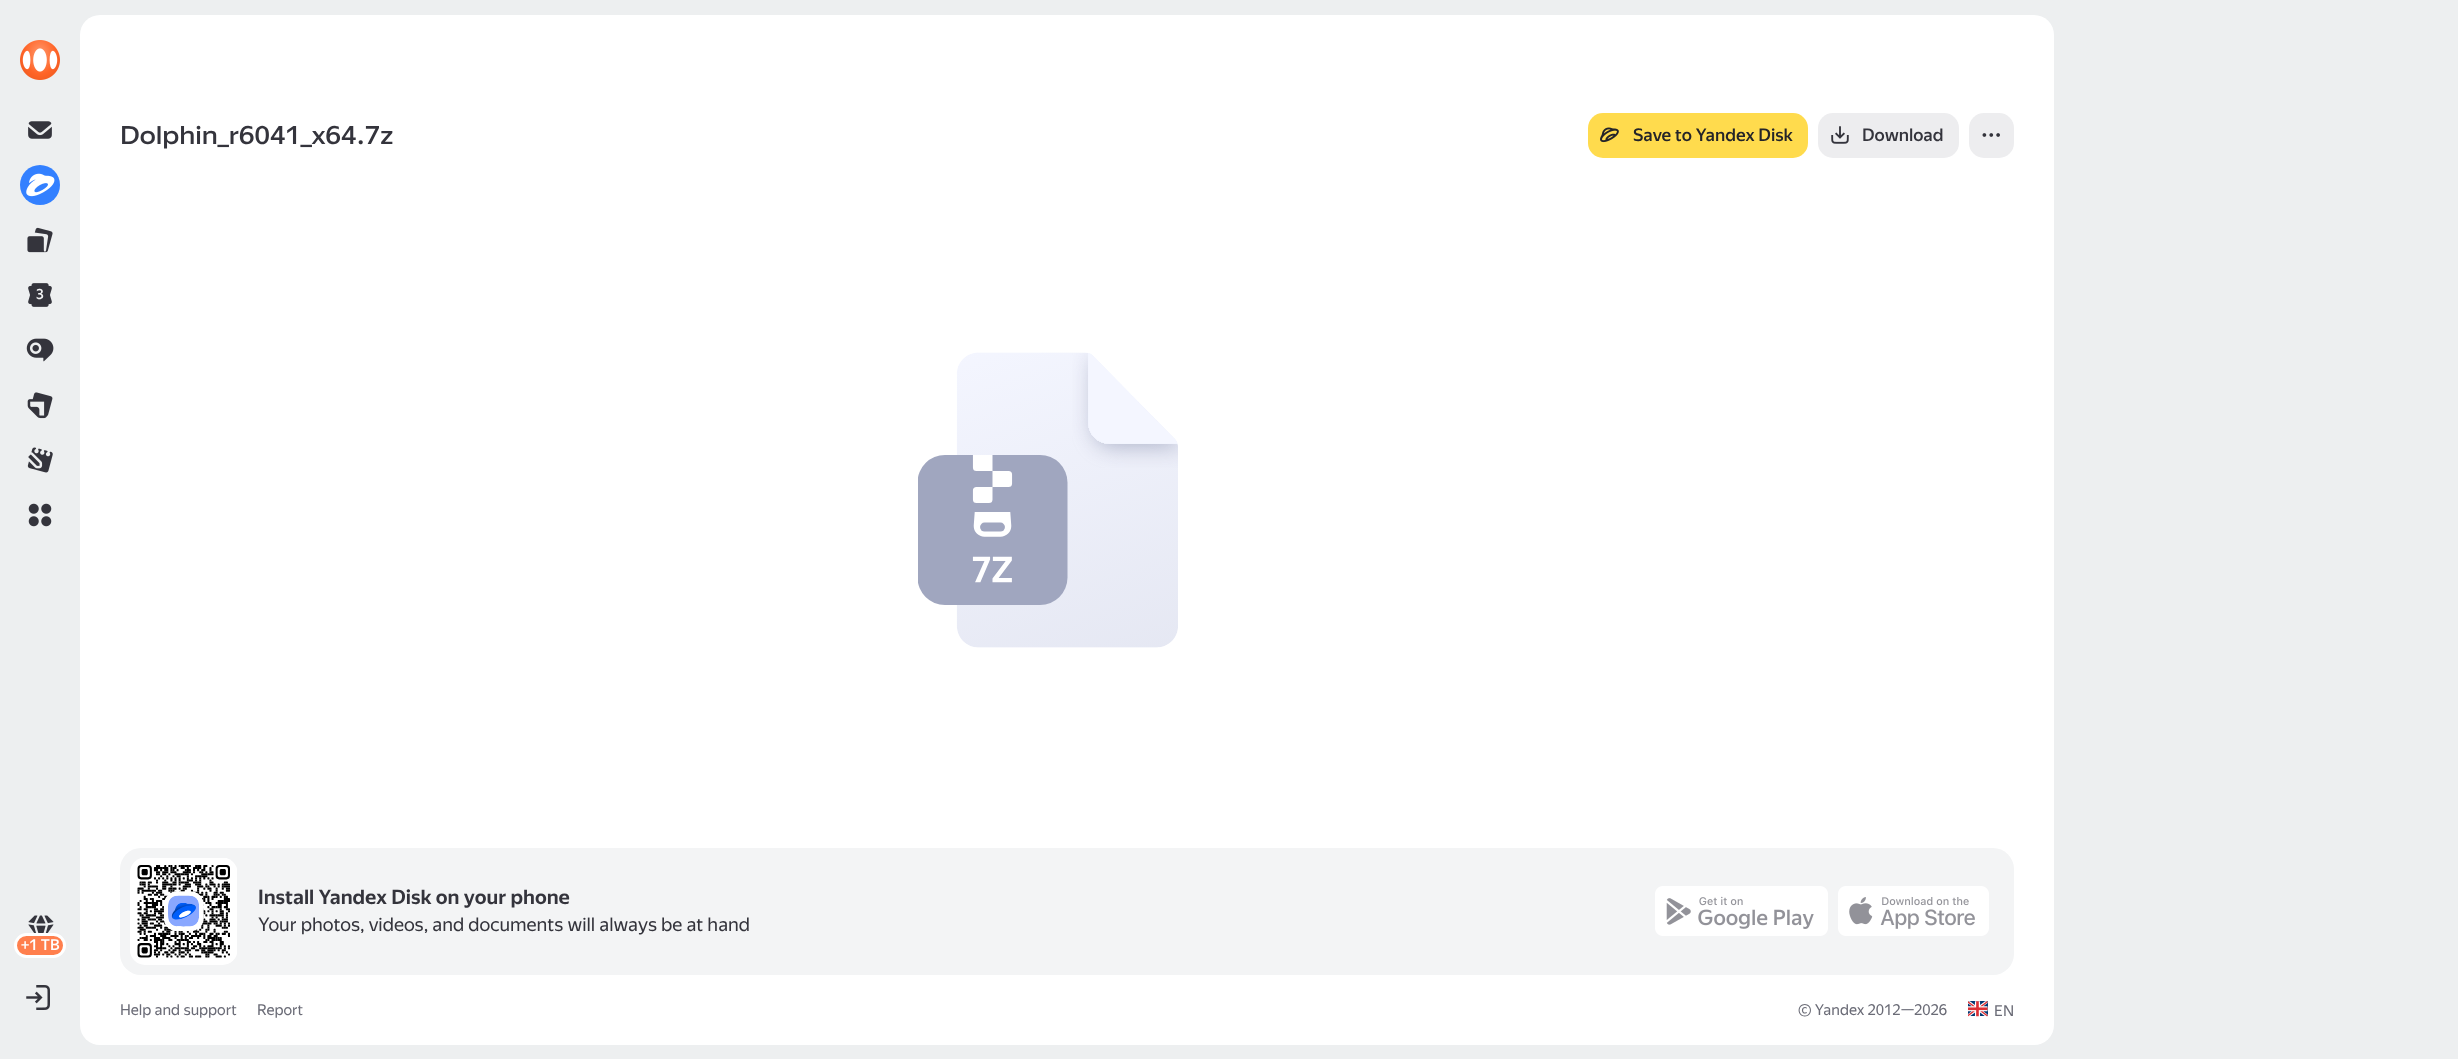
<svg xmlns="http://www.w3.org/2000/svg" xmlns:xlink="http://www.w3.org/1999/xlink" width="2458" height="1059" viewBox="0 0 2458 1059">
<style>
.cls-1{font:500 14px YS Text;fill:#f3f4f5}
.cls-2{font:500 15px YS Text;fill:#ffffff}
.cls-3{font:25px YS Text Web;fill:#34343c}
.cls-4{font:500 17.5px YS Text;fill:#242429}
.cls-5{font:500 17.5px YS Text;fill:#34343c}
.cls-6{font:bold 20px YS Text;fill:#34343c}
.cls-7{font:18.75px YS Text;fill:#34343c}
.cls-8{font:15px YS Text;fill:#6b6c77}
</style>
<rect width="100%" height="100%" fill="#edeff0"/>
<image xlink:href="image0.png" x="20" y="40" width="40" height="40"/>
<image xlink:href="image1.png" x="28" y="121" width="24" height="18"/>
<circle fill="#3380ff" cx="40" cy="185" r="20"/>
<image xlink:href="image2.png" x="26" y="173" width="29" height="24"/>
<image xlink:href="image3.png" x="27" y="227" width="26" height="26"/>
<image xlink:href="image4.png" x="28" y="283" width="24" height="24"/>
<image xlink:href="image5.png" x="26" y="338" width="28" height="24"/>
<image xlink:href="image6.png" x="27" y="392" width="26" height="27"/>
<image xlink:href="image7.png" x="27" y="447" width="26" height="26"/>
<image xlink:href="image8.png" x="28" y="503" width="24" height="24"/>
<image xlink:href="image9.png" x="28" y="915" width="26" height="18"/>
<rect fill="#ff7f4d" stroke="#ffffff" stroke-width="3" x="15.5" y="934.5" width="49" height="22" rx="11"/>
<image xlink:href="image10.png" x="26" y="985" width="24" height="25"/>
<rect fill="#ffffff" x="80" y="15" width="1974" height="1030" rx="20"/>
<rect fill="#ffdb4d" x="1588" y="113" width="220" height="45" rx="15"/>
<image xlink:href="image11.png" x="1600" y="127" width="19" height="16"/>
<rect fill="#ededef" x="1818" y="113" width="141" height="45" rx="15"/>
<image xlink:href="image12.png" x="1831" y="126" width="18" height="18"/>
<rect fill="#ededef" x="1969" y="113" width="45" height="45" rx="15"/>
<image xlink:href="image13.png" x="1982" y="133" width="18" height="4"/>
<image xlink:href="image14.png" x="918" y="352" width="260" height="296"/>
<rect fill="#f3f4f5" x="120" y="848" width="1894" height="127" rx="21"/>
<image xlink:href="image15.png" x="130" y="858" width="107" height="107"/>
<image xlink:href="image16.png" x="1655" y="886" width="173" height="50"/>
<image xlink:href="image17.png" x="1838" y="886" width="151" height="50"/>
<image xlink:href="image18.png" x="1968" y="1001" width="20" height="16"/>
<text class="cls-1" x="36" y="299">3</text>
<text class="cls-2" x="21" y="950">+1 TB</text>
<text class="cls-3" x="120" y="144">Dolphin_r6041_x64.7z</text>
<text class="cls-4" x="1633" y="141">Save to Yandex Disk</text>
<text class="cls-5" x="1862" y="141">Download</text>
<text class="cls-6" x="258" y="904">Install Yandex Disk on your phone</text>
<text class="cls-7" x="258" y="931">Your photos, videos, and documents will always be at hand</text>
<text class="cls-8" x="120" y="1015">Help and support</text>
<text class="cls-8" x="257" y="1015">Report</text>
<text class="cls-8" x="1798" y="1015">© Yandex 2012—2026</text>
<text class="cls-8" x="1994" y="1016">EN</text>
</svg>
